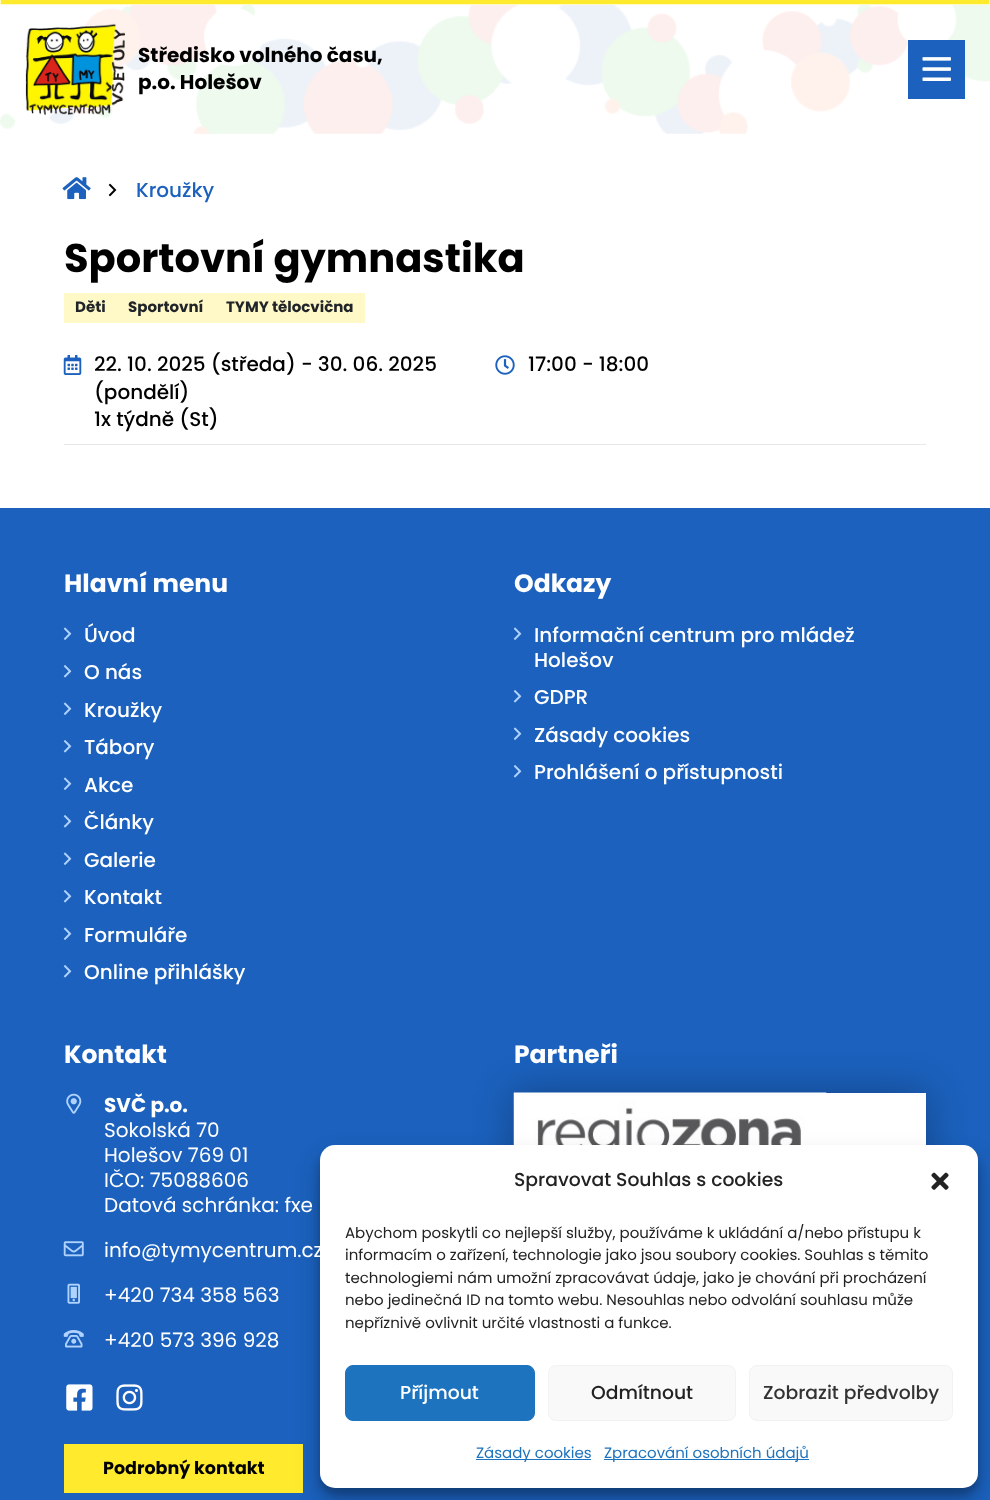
<svg xmlns="http://www.w3.org/2000/svg" xmlns:xlink="http://www.w3.org/1999/xlink" width="990" height="1500" viewBox="0 0 990 1500">
<style>
.cls-1{font:bold 20px Poppins;fill:#000000}
.cls-2{font:500 20px Poppins;fill:#1b61bd}
.cls-3{font:bold 40px Poppins;fill:#000000}
.cls-4{font:bold 15px Poppins;fill:#212529}
.cls-5{font:500 20px Poppins;fill:#000000}
.cls-6{font:bold 25px Poppins;fill:#ffffff}
.cls-7{font:500 20px Poppins;fill:#ffffff}
.cls-8{font:bold 20px Poppins;fill:#ffffff}
.cls-9{font:20px Poppins;fill:#ffffff}
.cls-10{font:bold 17.5px Poppins;fill:#000000}
.cls-11{font:500 18.75px Poppins;fill:#222222}
.cls-12{font:15px Poppins;fill:#222222}
.cls-13{font:500 18.75px Poppins;fill:#ffffff}
.cls-14{font:500 18.75px Poppins;fill:#333333}
.cls-15{font:15px Poppins;fill:#1e73be}
</style>
<rect width="100%" height="100%" fill="#ffffff"/>
<rect fill="#ffea2e" stroke="#fff9c4" x="0.5" y="-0.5" width="989" height="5"/>
<image xlink:href="image0.png" x="0" y="5" width="990" height="129"/>
<image xlink:href="image1.png" x="25" y="23" width="100" height="92"/>
<rect fill="#1b61bd" x="908" y="40" width="57" height="59"/>
<image xlink:href="image2.png" x="922" y="57" width="29" height="24"/>
<image xlink:href="image3.png" x="62" y="177" width="29" height="23"/>
<image xlink:href="image4.png" x="108" y="183" width="9" height="14"/>
<rect fill="#fff9c7" x="64" y="293" width="301" height="30"/>
<rect fill="#e8e8e8" x="64" y="444" width="862" height="1"/>
<image xlink:href="image5.png" x="63" y="355" width="19" height="20"/>
<image xlink:href="image6.png" x="495" y="355" width="20" height="20"/>
<rect fill="#1b61bd" x="0" y="508" width="990" height="992"/>
<image xlink:href="image7.png" x="63" y="627" width="9" height="13"/>
<image xlink:href="image8.png" x="63" y="665" width="9" height="13"/>
<image xlink:href="image7.png" x="63" y="702" width="9" height="13"/>
<image xlink:href="image8.png" x="63" y="740" width="9" height="13"/>
<image xlink:href="image7.png" x="63" y="777" width="9" height="13"/>
<image xlink:href="image8.png" x="63" y="815" width="9" height="13"/>
<image xlink:href="image7.png" x="63" y="852" width="9" height="13"/>
<image xlink:href="image8.png" x="63" y="890" width="9" height="13"/>
<image xlink:href="image7.png" x="63" y="927" width="9" height="13"/>
<image xlink:href="image8.png" x="63" y="965" width="9" height="13"/>
<image xlink:href="image7.png" x="513" y="627" width="9" height="13"/>
<image xlink:href="image8.png" x="513" y="690" width="9" height="13"/>
<image xlink:href="image7.png" x="513" y="727" width="9" height="13"/>
<image xlink:href="image8.png" x="513" y="765" width="9" height="13"/>
<image xlink:href="image9.png" x="66" y="1093" width="16" height="21"/>
<image xlink:href="image10.png" x="63" y="1241" width="21" height="16"/>
<image xlink:href="image11.png" x="67" y="1283" width="13" height="21"/>
<image xlink:href="image12.png" x="63" y="1330" width="21" height="18"/>
<image xlink:href="image13.png" x="66" y="1384" width="27" height="27"/>
<image xlink:href="image14.png" x="116" y="1384" width="27" height="27"/>
<rect fill="#ffea2e" x="64" y="1444" width="239" height="49"/>
<rect fill="#000000" fill-opacity="0.3" filter="blur(19px)" x="514" y="1093" width="412" height="333"/>
<rect fill="#ffffff" x="826" y="1093" width="100" height="52"/>
<image xlink:href="image15.png" x="513" y="1092" width="314" height="53"/>
<rect fill="#000000" fill-opacity="0.23" filter="blur(4px)" x="320" y="1153" width="658" height="342" rx="15"/>
<rect fill="#000000" fill-opacity="0.19" filter="blur(12.5px)" x="320" y="1158" width="658" height="342" rx="15"/>
<rect fill="#ffffff" x="320" y="1145" width="658" height="343" rx="15"/>
<image xlink:href="image16.png" x="931" y="1172" width="18" height="18"/>
<rect fill="#1e73be" stroke="#1e73be" x="345.5" y="1365.5" width="189" height="55" rx="7.5"/>
<rect fill="#f9f9f9" stroke="#f2f2f2" x="548.5" y="1365.5" width="187" height="55" rx="7.5"/>
<rect fill="#f9f9f9" stroke="#f2f2f2" x="749.5" y="1365.5" width="203" height="55" rx="7.5"/>
<rect fill="#1e73be" x="476" y="1459" width="115" height="1"/>
<rect fill="#1e73be" x="604" y="1459" width="205" height="1"/>
<text class="cls-1"><tspan x="138" y="62">Středisko volného času,</tspan><tspan x="138" y="89">p.o. Holešov</tspan></text>
<text class="cls-2" x="136" y="197">Kroužky</text>
<text class="cls-3" x="64" y="272">Sportovní gymnastika</text>
<text class="cls-4" x="75" y="312">Děti</text>
<text class="cls-4" x="128" y="312">Sportovní</text>
<text class="cls-4" x="226" y="312">TYMY tělocvična</text>
<text class="cls-5"><tspan x="94" y="371">22. 10. 2025 (středa) - 30. 06. 2025</tspan><tspan x="94" y="399">(pondělí)</tspan><tspan x="94" y="426">1x týdně (St)</tspan></text>
<text class="cls-5" x="528" y="371">17:00 - 18:00</text>
<text class="cls-6" x="64" y="592">Hlavní menu</text>
<text class="cls-7"><tspan x="84" y="642">Úvod</tspan><tspan x="84" y="679">O nás</tspan><tspan x="84" y="717">Kroužky</tspan><tspan x="84" y="754">Tábory</tspan><tspan x="84" y="792">Akce</tspan><tspan x="84" y="829">Články</tspan><tspan x="84" y="867">Galerie</tspan><tspan x="84" y="904">Kontakt</tspan><tspan x="84" y="942">Formuláře</tspan><tspan x="84" y="979">Online přihlášky</tspan></text>
<text class="cls-6" x="514" y="592">Odkazy</text>
<text class="cls-7"><tspan x="534" y="642">Informační centrum pro mládež</tspan><tspan x="534" y="667">Holešov</tspan><tspan x="534" y="704">GDPR</tspan><tspan x="534" y="742">Zásady cookies</tspan><tspan x="534" y="779">Prohlášení o přístupnosti</tspan></text>
<text class="cls-6" x="64" y="1063">Kontakt</text>
<text class="cls-8" x="104" y="1112">SVČ p.o.</text>
<text class="cls-9"><tspan x="104" y="1137">Sokolská 70</tspan><tspan x="104" y="1162">Holešov 769 01</tspan><tspan x="104" y="1187">IČO: 75088606</tspan><tspan x="104" y="1212">Datová schránka: fxe</tspan></text>
<text class="cls-9" x="104" y="1257">info@tymycentrum.cz</text>
<text class="cls-9" x="104" y="1302">+420 734 358 563</text>
<text class="cls-9" x="104" y="1347">+420 573 396 928</text>
<text class="cls-10" x="103" y="1474">Podrobný kontakt</text>
<text class="cls-6" x="514" y="1063">Partneři</text>
<text class="cls-11" x="514" y="1186">Spravovat Souhlas s cookies</text>
<text class="cls-12"><tspan x="345" y="1238">Abychom poskytli co nejlepší služby, používáme k ukládání a/nebo přístupu k</tspan><tspan x="345" y="1260">informacím o zařízení, technologie jako jsou soubory cookies. Souhlas s těmito</tspan><tspan x="345" y="1283">technologiemi nám umožní zpracovávat údaje, jako je chování při procházení</tspan><tspan x="345" y="1305">nebo jedinečná ID na tomto webu. Nesouhlas nebo odvolání souhlasu může</tspan><tspan x="345" y="1328">nepříznivě ovlivnit určité vlastnosti a funkce.</tspan></text>
<text class="cls-13" x="400" y="1399">Příjmout</text>
<text class="cls-11" x="591" y="1399">Odmítnout</text>
<text class="cls-14" x="763" y="1399">Zobrazit předvolby</text>
<text class="cls-15" x="476" y="1458">Zásady cookies</text>
<text class="cls-15" x="604" y="1458">Zpracování osobních údajů</text>
</svg>
